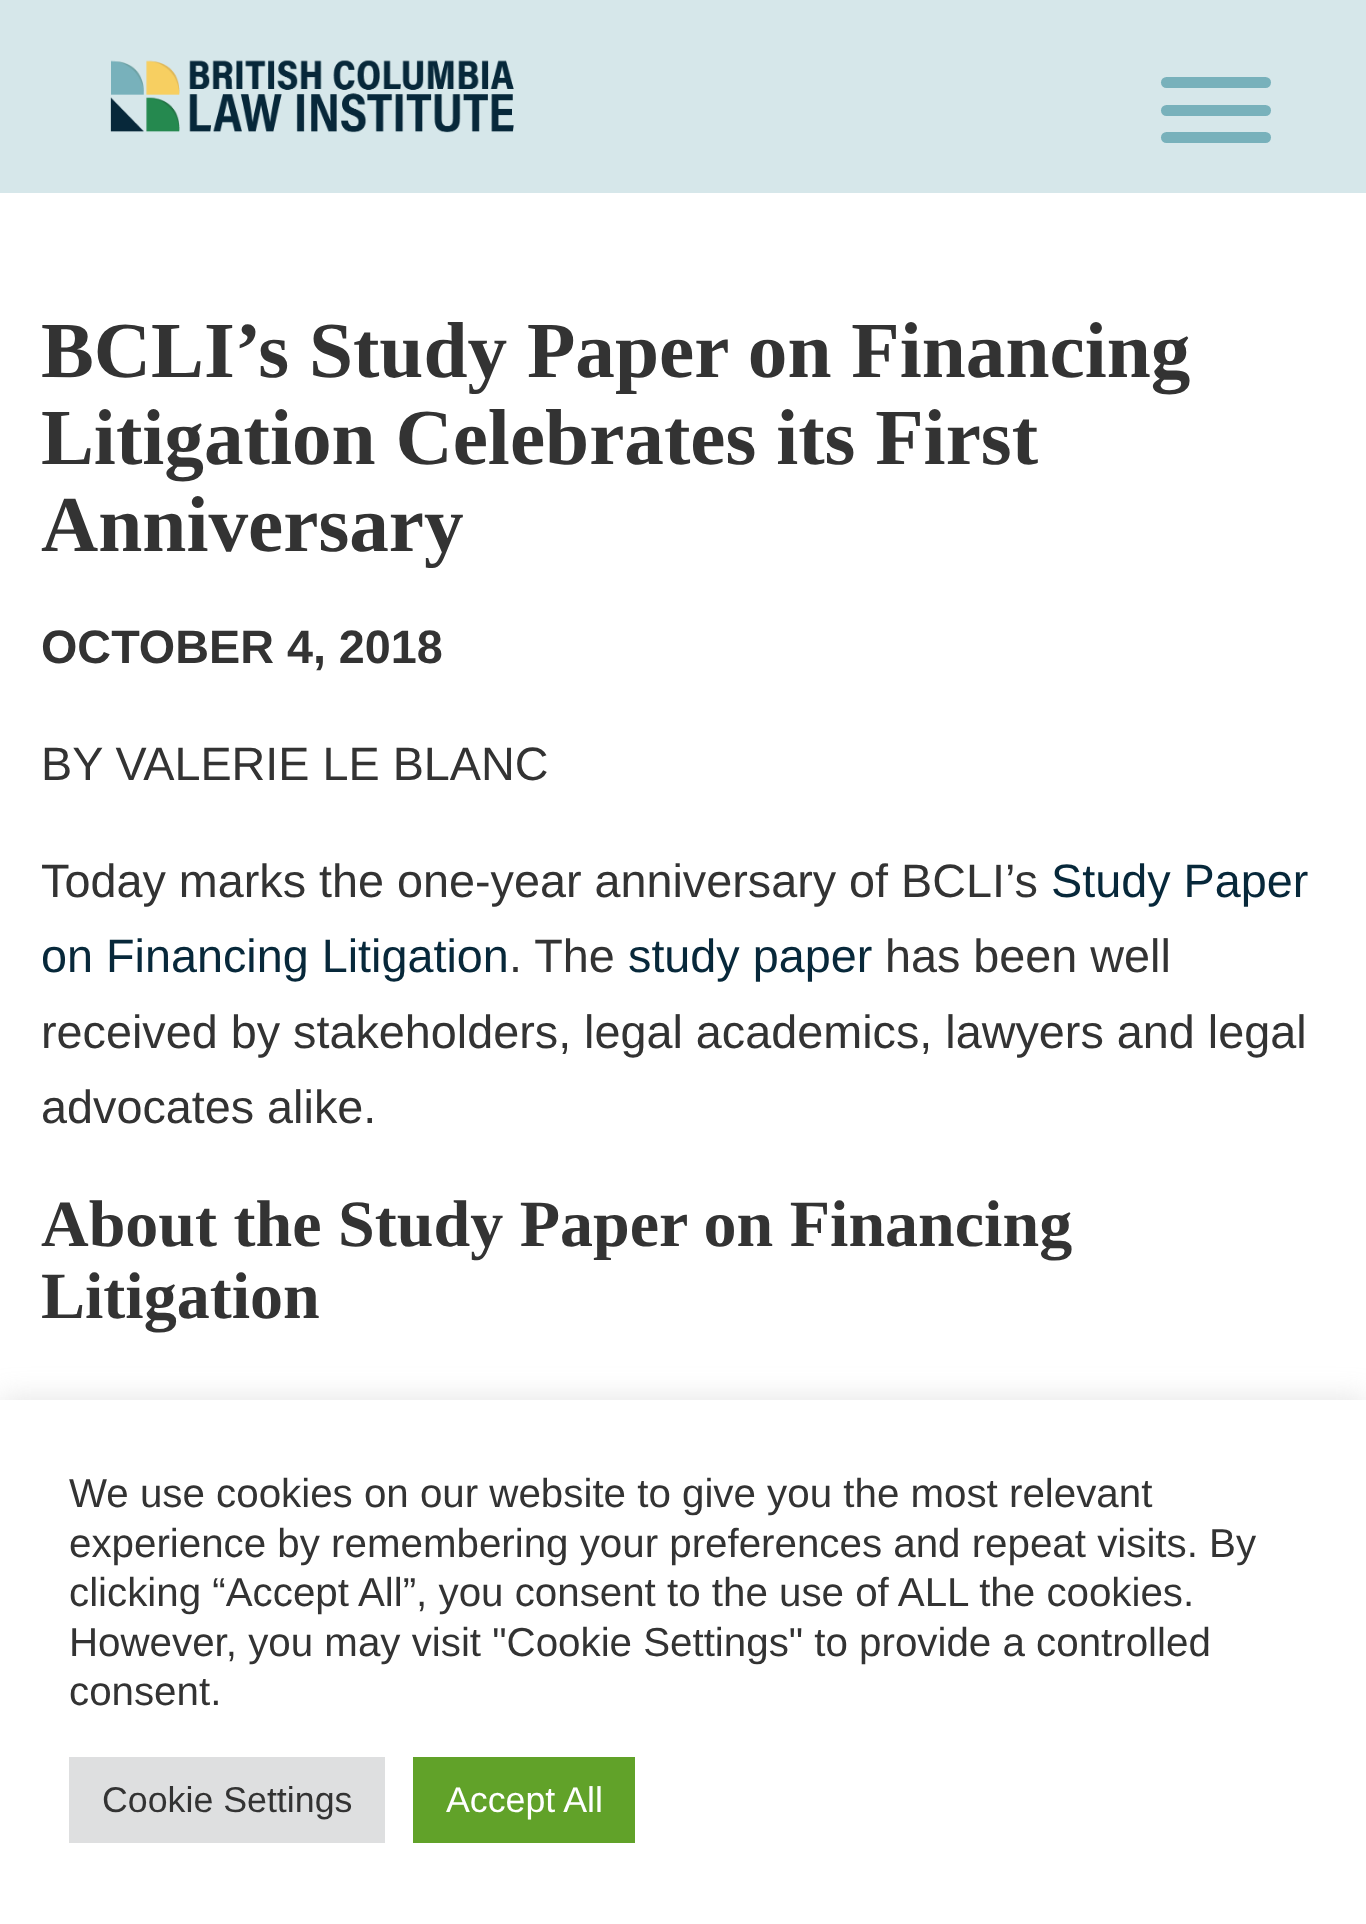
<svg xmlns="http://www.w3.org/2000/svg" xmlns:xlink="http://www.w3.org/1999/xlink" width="1366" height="1924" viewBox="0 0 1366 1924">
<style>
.cls-1{font:bold 79.25px Liberation Serif;fill:#333333}
.cls-2{font:bold 46.75px Liberation Sans;fill:#333333}
.cls-3{font:46.75px Liberation Sans;fill:#333333}
.cls-4{font:46.75px Liberation Sans;fill:#07283a}
.cls-5{font:bold 66px Liberation Serif;fill:#333333}
.cls-6{font:40.3px Liberation Sans;fill:#333333}
.cls-7{font:35.75px Liberation Sans;fill:#333333}
.cls-8{font:35.75px Liberation Sans;fill:#ffffff}
</style>
<rect width="100%" height="100%" fill="#ffffff"/>
<rect fill="#d6e7ea" x="0" y="0" width="1366" height="193"/>
<image xlink:href="image0.png" x="110" y="60" width="404" height="73"/>
<rect fill="#78b1bb" x="1161" y="77" width="110" height="11" rx="5.5"/>
<rect fill="#78b1bb" x="1161" y="105" width="110" height="11" rx="5.5"/>
<rect fill="#78b1bb" x="1161" y="132" width="110" height="11" rx="5.5"/>
<rect fill="#acabab" fill-opacity="0.3" filter="blur(14px)" x="0" y="1397" width="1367" height="525"/>
<rect fill="#ffffff" x="0" y="1400" width="1366" height="524"/>
<rect fill="#dedfe0" x="69" y="1757" width="316" height="86"/>
<rect fill="#61a229" x="413" y="1757" width="222" height="86"/>
<text class="cls-1"><tspan x="41" y="377">BCLI’s Study Paper on Financing</tspan><tspan x="41" y="464">Litigation Celebrates its First</tspan><tspan x="41" y="551">Anniversary</tspan></text>
<text class="cls-2" x="41" y="663">OCTOBER 4, 2018</text>
<text class="cls-3" x="41" y="780">BY VALERIE LE BLANC</text>
<text class="cls-3" x="41" y="897">Today marks the one-year anniversary of BCLI’s</text>
<text class="cls-4" x="1051" y="897">Study Paper</text>
<text class="cls-4" x="41" y="972">on Financing Litigation</text>
<text class="cls-3" x="509" y="972">. The</text>
<text class="cls-4" x="628" y="972">study paper</text>
<text class="cls-3" x="885" y="972">has been well</text>
<text class="cls-3"><tspan x="41" y="1048">received by stakeholders, legal academics, lawyers and legal</tspan><tspan x="41" y="1123">advocates alike.</tspan></text>
<text class="cls-5"><tspan x="41" y="1246">About the Study Paper on Financing</tspan><tspan x="41" y="1318">Litigation</tspan></text>
<text class="cls-6"><tspan x="69" y="1507">We use cookies on our website to give you the most relevant</tspan><tspan x="69" y="1557">experience by remembering your preferences and repeat visits. By</tspan><tspan x="69" y="1606">clicking “Accept All”, you consent to the use of ALL the cookies.</tspan><tspan x="69" y="1656">However, you may visit "Cookie Settings" to provide a controlled</tspan><tspan x="69" y="1705">consent.</tspan></text>
<text class="cls-7" x="102" y="1812">Cookie Settings</text>
<text class="cls-8" x="446" y="1812">Accept All</text>
</svg>
